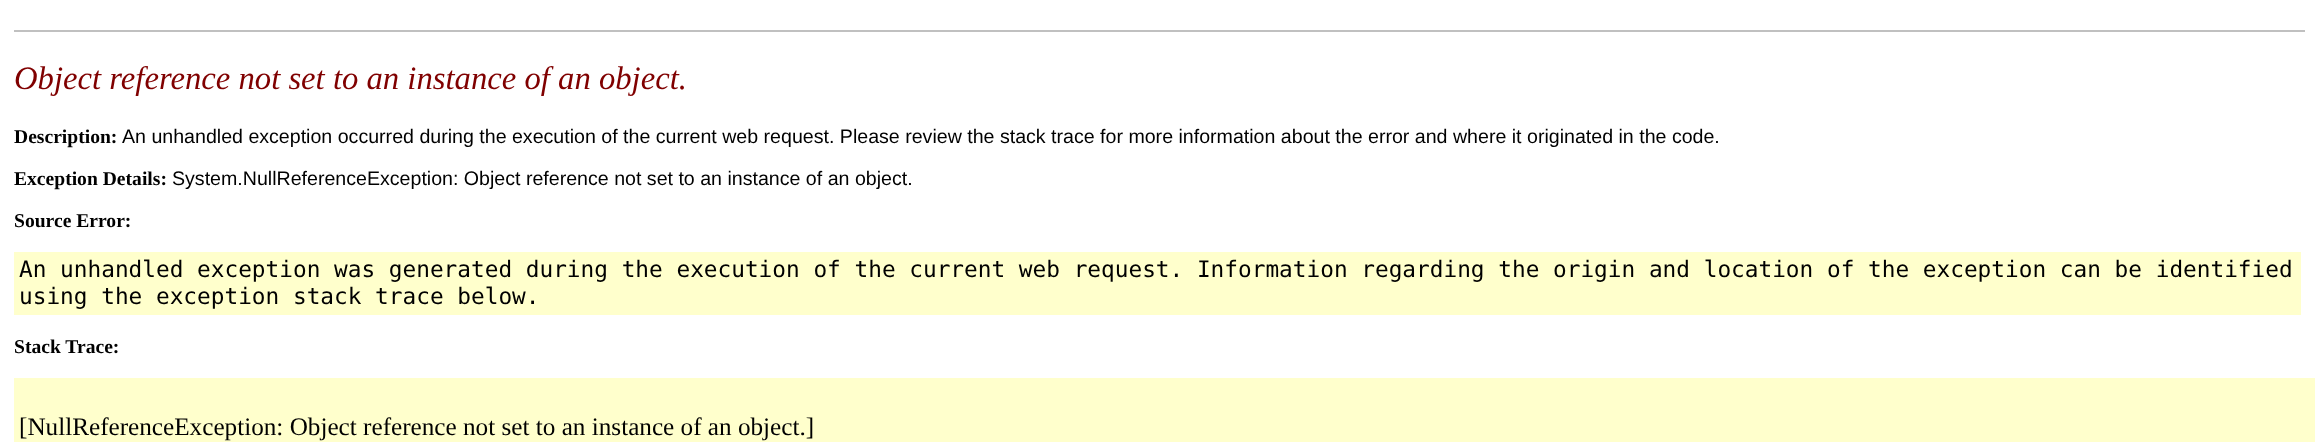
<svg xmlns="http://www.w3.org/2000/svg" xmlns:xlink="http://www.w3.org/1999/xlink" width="2315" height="442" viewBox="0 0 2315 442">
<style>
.cls-1{font:italic 32.7px Liberation Serif;fill:#800000}
.cls-2{font:bold 19.6px Liberation Serif;fill:#000000}
.cls-3{font:19.6px Liberation Sans;fill:#000000}
.cls-4{font:22.75px DejaVu Sans Mono;fill:#000000}
.cls-5{font:25.2px Liberation Serif;fill:#000000}
</style>
<rect width="100%" height="100%" fill="#ffffff"/>
<rect fill="#c0c0c0" x="14" y="30" width="2291" height="2"/>
<rect fill="#ffffcc" x="14" y="252" width="2287" height="63"/>
<rect fill="#ffffcc" x="14" y="378" width="2301" height="64"/>
<text class="cls-1" x="14" y="89">Object reference not set to an instance of an object.</text>
<text class="cls-2" x="14" y="143">Description:</text>
<text class="cls-3" x="122" y="143">An unhandled exception occurred during the execution of the current web request. Please review the stack trace for more information about the error and where it originated in the code.</text>
<text class="cls-2" x="14" y="185">Exception Details:</text>
<text class="cls-3" x="172" y="185">System.NullReferenceException: Object reference not set to an instance of an object.</text>
<text class="cls-2" x="14" y="227">Source Error:</text>
<text class="cls-4"><tspan x="19" y="277">An unhandled exception was generated during the execution of the current web request. Information regarding the origin and location of the exception can be identified</tspan><tspan x="19" y="304">using the exception stack trace below.</tspan></text>
<text class="cls-2" x="14" y="353">Stack Trace:</text>
<text class="cls-5" x="19" y="435">[NullReferenceException: Object reference not set to an instance of an object.]</text>
</svg>
